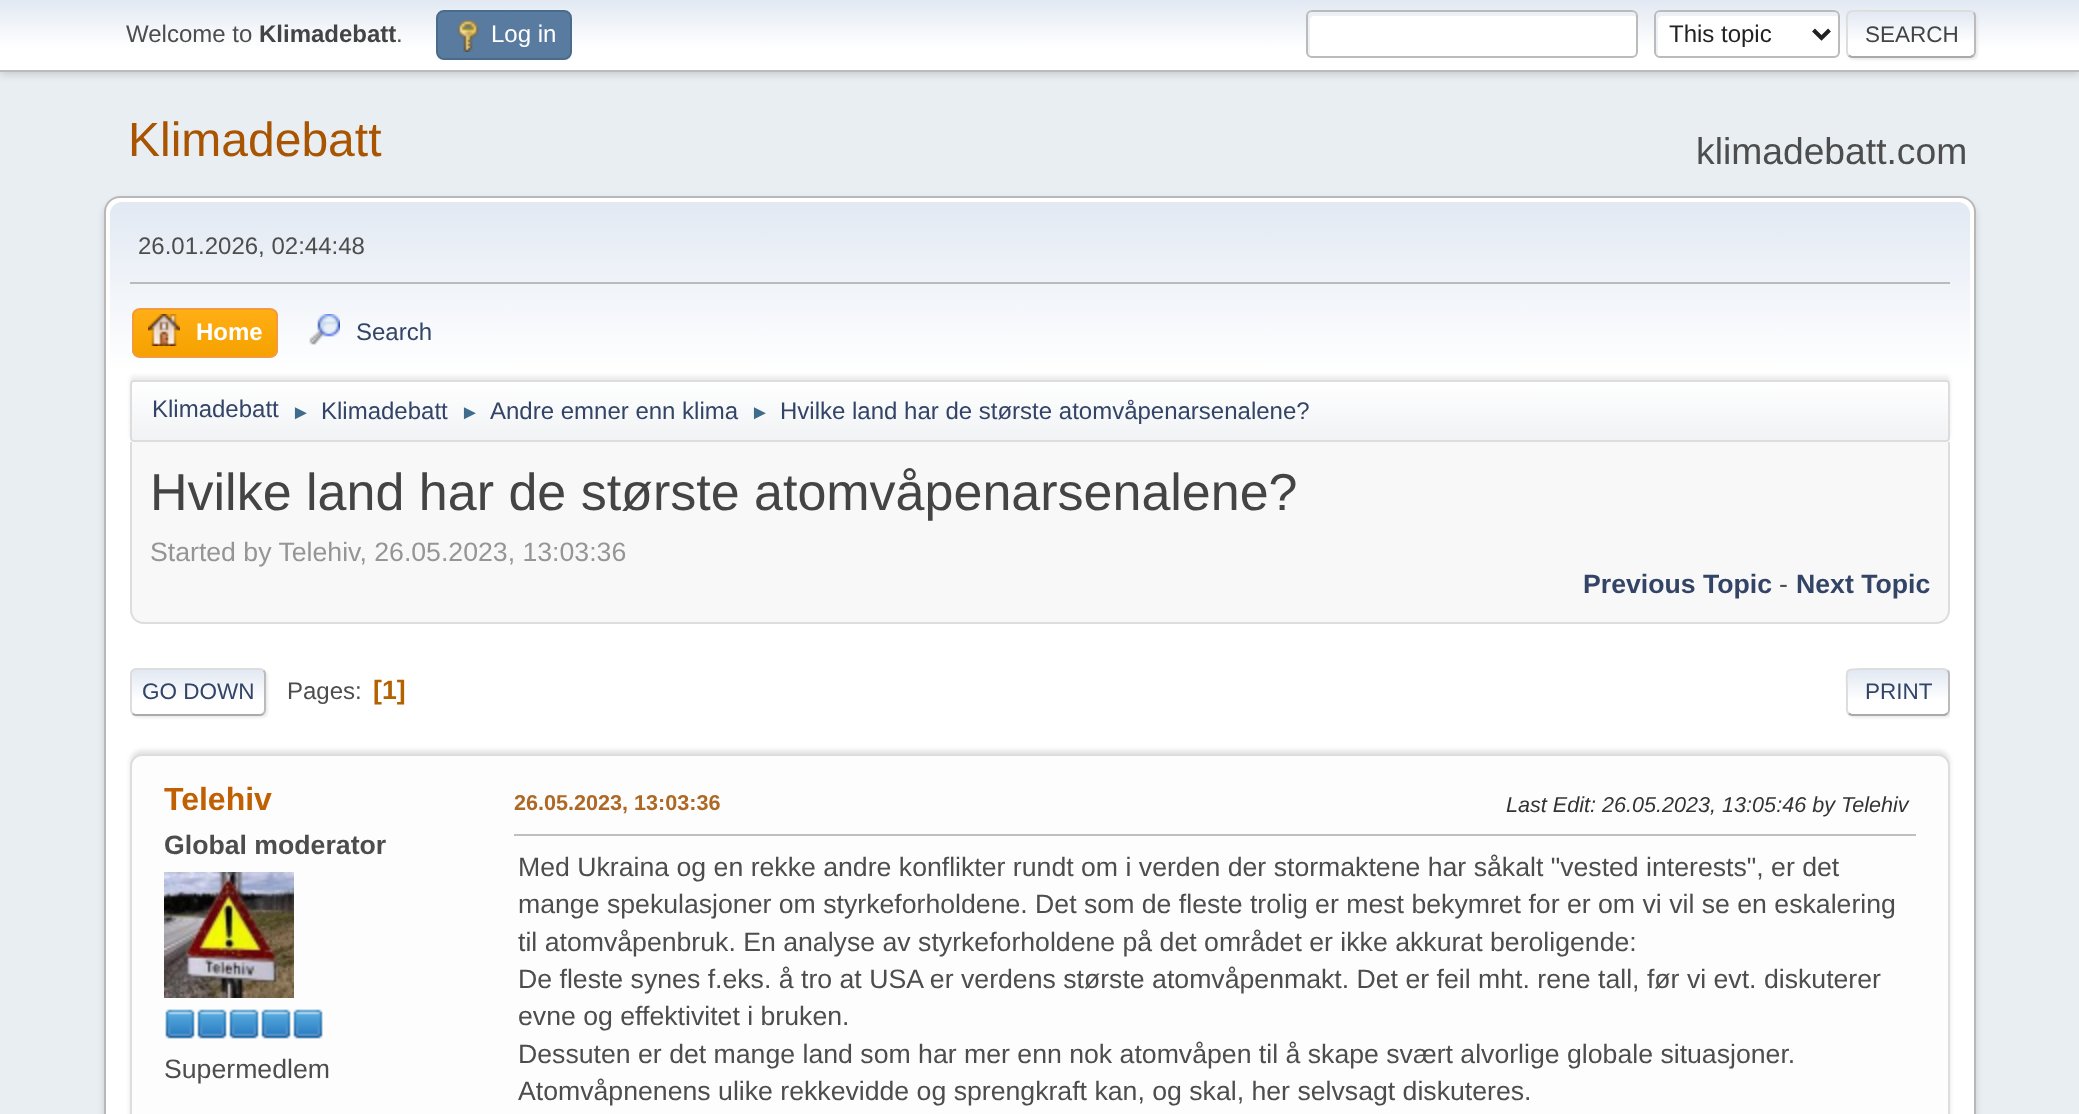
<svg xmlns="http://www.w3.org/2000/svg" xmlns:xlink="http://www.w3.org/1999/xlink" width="2079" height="1114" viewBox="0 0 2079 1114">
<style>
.cls-1{font:24px Liberation Sans;fill:#4d4d4d}
.cls-2{font:bold 24px Liberation Sans;fill:#444444}
.cls-3{font:24px Liberation Sans;fill:#ffffff}
.cls-4{font:24px Liberation Sans;fill:#222222}
.cls-5{font:22.5px Liberation Sans;fill:#444444}
.cls-6{font:48px Liberation Sans;fill:#a85400}
.cls-7{font:37.25px Liberation Sans;fill:#4d4d4d}
.cls-8{font:bold 24px Liberation Sans;fill:#ffffff}
.cls-9{font:24px Liberation Sans;fill:#334466}
.cls-10{font:20px Liberation Sans;fill:#3f6b8c}
.cls-11{font:52px Liberation Sans;fill:#444444}
.cls-12{font:26.67px Liberation Sans;fill:#959595}
.cls-13{font:bold 26.67px Liberation Sans;fill:#334466}
.cls-14{font:26.67px Liberation Sans;fill:#4d4d4d}
.cls-15{font:22.5px Liberation Sans;fill:#334466}
.cls-16{font:bold 26.67px Liberation Sans;fill:#b46100}
.cls-17{font:bold 32px Liberation Sans;fill:#c06002}
.cls-18{font:bold 26.67px Liberation Sans;fill:#4d4d4d}
.cls-19{font:bold 21.6px Liberation Sans;fill:#ad6825}
.cls-20{font:italic 21.6px Liberation Sans;fill:#333333}
</style>
<defs>
<linearGradient id="g1" gradientUnits="userSpaceOnUse" x1="1040" y1="0" x2="1040" y2="70"><stop offset="0" stop-color="#e2e9f3"/><stop offset="0.7" stop-color="#ffffff"/></linearGradient>
<clipPath id="clip1"><rect x="1846" y="10" width="130" height="48" rx="6"/></clipPath>
<linearGradient id="g2" gradientUnits="userSpaceOnUse" x1="1911" y1="12" x2="1911" y2="56"><stop offset="0" stop-color="#e2e9f3"/><stop offset="0.7" stop-color="#ffffff"/></linearGradient>
<linearGradient id="g3" gradientUnits="userSpaceOnUse" x1="1911" y1="56" x2="1911" y2="100"><stop offset="0" stop-color="#e2e9f3"/><stop offset="0.7" stop-color="#ffffff"/></linearGradient>
<linearGradient id="g4" gradientUnits="userSpaceOnUse" x1="1040" y1="202" x2="1040" y2="446"><stop offset="0" stop-color="#e2e9f3"/><stop offset="0.7" stop-color="#ffffff"/></linearGradient>
<clipPath id="clip2"><rect x="132" y="308" width="146" height="50" rx="8"/></clipPath>
<linearGradient id="g5" gradientUnits="userSpaceOnUse" x1="205" y1="310" x2="205" y2="356"><stop offset="0" stop-color="#ffae14"/><stop offset="1" stop-color="#f5a100"/></linearGradient>
<clipPath id="clip3"><rect x="130" y="380" width="1820" height="62" rx="4"/></clipPath>
<linearGradient id="g6" gradientUnits="userSpaceOnUse" x1="1040" y1="382" x2="1040" y2="440"><stop offset="0" stop-color="#ffffff"/><stop offset="0.95" stop-color="#f1f3f5"/></linearGradient>
<clipPath id="clip4"><rect x="130" y="668" width="136" height="48" rx="6"/></clipPath>
<linearGradient id="g7" gradientUnits="userSpaceOnUse" x1="198" y1="670" x2="198" y2="714"><stop offset="0" stop-color="#e2e9f3"/><stop offset="0.7" stop-color="#ffffff"/></linearGradient>
<clipPath id="clip5"><rect x="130" y="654" width="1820" height="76"/></clipPath>
<clipPath id="clip6"><rect x="1846" y="668" width="104" height="48" rx="6"/></clipPath>
<linearGradient id="g8" gradientUnits="userSpaceOnUse" x1="1898" y1="670" x2="1898" y2="714"><stop offset="0" stop-color="#e2e9f3"/><stop offset="0.7" stop-color="#ffffff"/></linearGradient>
<linearGradient id="g9" gradientUnits="userSpaceOnUse" x1="1898" y1="714" x2="1898" y2="758"><stop offset="0" stop-color="#e2e9f3"/><stop offset="0.7" stop-color="#ffffff"/></linearGradient>
</defs>
<rect width="100%" height="100%" fill="#e9eef2"/>
<rect fill="#000000" fill-opacity="0.16" filter="blur(4px)" x="0" y="2" width="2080" height="72"/>
<rect fill="url(#g1)" x="0" y="0" width="2079" height="70"/>
<rect fill="#bbbbbb" x="0" y="70" width="2079" height="2"/>
<rect fill="#597b9f" stroke="#4a6b8c" stroke-width="2" x="437" y="11" width="134" height="48" rx="7"/>
<image xlink:href="image0.png" x="457" y="20" width="22" height="32"/>
<rect fill="#ffffff" x="1306" y="10" width="332" height="48" rx="6"/>
<path fill="#ecf1f8" d="M1314 16H1634L1636 17V16C1636 14 1634 12 1632 12H1312C1310 12 1308 14 1308 16V52C1308 53 1309 55 1310 55V20C1310 18 1312 16 1314 16Z"/>
<rect fill="none" stroke="#bbbbbb" stroke-width="2" x="1307" y="11" width="330" height="46" rx="5"/>
<rect fill="#ffffff" x="1654" y="10" width="186" height="48" rx="6"/>
<path fill="#ecf1f8" d="M1662 16H1836L1838 17V16C1838 14 1836 12 1834 12H1660C1658 12 1656 14 1656 16V52C1656 53 1657 55 1658 55V20C1658 18 1660 16 1662 16Z"/>
<rect fill="none" stroke="#bbbbbb" stroke-width="2" x="1655" y="11" width="184" height="46" rx="5"/>
<path fill="none" stroke="#222222" stroke-width="4" d="M1813.5 30L1821.5 38L1829.5 30"/>
<rect fill="#dddddd" fill-opacity="0.57" filter="blur(1px)" x="1848" y="12" width="130" height="48" rx="6"/>
<g clip-path="url(#clip1)">
<rect fill="url(#g2)" x="1846" y="12" width="130" height="44"/>
<rect fill="url(#g3)" x="1846" y="56" width="130" height="2"/>
</g>
<path fill="none" stroke="#bbbbbb" stroke-width="2" d="M1973.5 12.5C1974.5 13.5 1975 14.5 1975 16V52C1975 53.5 1974.5 54.5 1973.5 55.5"/>
<path fill="none" stroke="#aaaaaa" stroke-width="2" d="M1973.5 55.5L1970.5 57H1851.5L1848.5 55.5"/>
<path fill="none" stroke="#dddddd" stroke-width="2" d="M1848.5 55.5C1846 53 1847 48.5 1847 46V34C1847 7 1843 11 1871.5 11H1970C1971.5 11 1972.5 11.5 1973.5 12.5"/>
<rect fill="#000000" fill-opacity="0.14" filter="blur(3px)" x="104" y="200" width="1872" height="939" rx="16"/>
<rect fill="#ffffff" stroke="#b8b8b8" stroke-width="2" x="105" y="197" width="1870" height="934" rx="15"/>
<path fill="url(#g4)" d="M122 202H1958C1964.5 202 1970 207.5 1970 214V446H110V214C110 207.5 115.5 202 122 202Z"/>
<rect fill="#bbbbbb" x="130" y="282" width="1820" height="2"/>
<g clip-path="url(#clip2)">
<rect fill="url(#g5)" x="132" y="310" width="146" height="46"/>
</g>
<rect fill="none" stroke="#f49a3a" stroke-width="2" x="133" y="309" width="144" height="48" rx="7"/>
<image xlink:href="image1.png" x="148" y="314" width="32" height="32"/>
<image xlink:href="image2.png" x="309" y="314" width="31" height="31"/>
<rect fill="#000000" fill-opacity="0.08" filter="blur(2px)" x="130" y="376" width="1820" height="62" rx="4"/>
<g clip-path="url(#clip3)">
<rect fill="url(#g6)" x="130" y="382" width="1820" height="58"/>
</g>
<rect fill="none" stroke="#dddddd" stroke-width="2" x="131" y="381" width="1818" height="60" rx="3"/>
<path fill="#f8f8f8" d="M130 442H1950V610C1950 617.5 1943.5 624 1936 624H144C136.5 624 130 617.5 130 610Z"/>
<path fill="#dddddd" fill-rule="evenodd" d="M130 442H1950V610C1950 618 1944 624 1936 624H144C136 624 130 618 130 610ZM132 442H1948V610C1948 617 1943 622 1936 622H144C137 622 132 617 132 610Z"/>
<rect fill="#dddddd" fill-opacity="0.57" filter="blur(1px)" x="132" y="670" width="136" height="48" rx="6"/>
<g clip-path="url(#clip4)">
<rect fill="url(#g7)" x="130" y="670" width="136" height="44"/>
</g>
<path fill="none" stroke="#bbbbbb" stroke-width="2" d="M263.5 670.5C264.5 671.5 265 672.5 265 674V710C265 711.5 264.5 712.5 263.5 713.5"/>
<path fill="none" stroke="#aaaaaa" stroke-width="2" d="M263.5 713.5C262.5 714.5 261.5 715 260 715H136C134.5 715 133.5 714.5 132.5 713.5"/>
<path fill="none" stroke="#dddddd" stroke-width="2" d="M132.5 713.5C131.5 712.5 131 711.5 131 710V674C131 672.5 131.5 671.5 132.5 670.5C133.5 669.5 134.5 669 136 669H260C261.5 669 262.5 669.5 263.5 670.5"/>
<g clip-path="url(#clip5)">
<rect fill="#dddddd" fill-opacity="0.57" filter="blur(1px)" x="1848" y="670" width="104" height="48" rx="6"/>
</g>
<rect fill="#ffffff" x="1846" y="668" width="104" height="48" rx="6"/>
<g clip-path="url(#clip6)">
<rect fill="url(#g8)" x="1846" y="670" width="104" height="44"/>
<rect fill="url(#g9)" x="1846" y="714" width="104" height="2"/>
</g>
<path fill="none" stroke="#bbbbbb" stroke-width="2" d="M1947.5 670.5C1948.5 671.5 1949 672.5 1949 674V710C1949 711.5 1948.5 712.5 1947.5 713.5"/>
<path fill="none" stroke="#aaaaaa" stroke-width="2" d="M1947.5 713.5L1944.5 715H1851.5L1848.5 713.5"/>
<path fill="none" stroke="#dddddd" stroke-width="2" d="M1848.5 713.5C1846 711 1847 706.5 1847 704V692C1847 667 1842.5 669 1867.5 669H1944L1947.5 670.5"/>
<rect fill="#000000" fill-opacity="0.1" filter="blur(2px)" x="130" y="750" width="1820" height="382" rx="12"/>
<rect fill="#fdfdfd" stroke="#dddddd" stroke-width="2" x="131" y="755" width="1818" height="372" rx="11"/>
<image xlink:href="image3.png" x="164" y="872" width="130" height="126"/>
<image xlink:href="image4.png" x="165" y="1009" width="30" height="30"/>
<image xlink:href="image4.png" x="197" y="1009" width="30" height="30"/>
<image xlink:href="image4.png" x="229" y="1009" width="30" height="30"/>
<image xlink:href="image4.png" x="261" y="1009" width="30" height="30"/>
<image xlink:href="image4.png" x="293" y="1009" width="30" height="30"/>
<rect fill="#bfbfbf" x="514" y="834" width="1402" height="2"/>
<text class="cls-1" x="126" y="42">Welcome to</text>
<text class="cls-2" x="259" y="42">Klimadebatt</text>
<text class="cls-1" x="396" y="42">.</text>
<text class="cls-3" x="491" y="42">Log in</text>
<text class="cls-4" x="1669" y="42">This topic</text>
<text class="cls-5" x="1865" y="42">SEARCH</text>
<text class="cls-6" x="128" y="156">Klimadebatt</text>
<text class="cls-7" x="1696" y="164">klimadebatt.com</text>
<text class="cls-1" x="138" y="254">26.01.2026, 02:44:48</text>
<text class="cls-8" x="196" y="340">Home</text>
<text class="cls-9" x="356" y="340">Search</text>
<text class="cls-9" x="152" y="417">Klimadebatt</text>
<text class="cls-10" x="291" y="419">►</text>
<text class="cls-9" x="321" y="419">Klimadebatt</text>
<text class="cls-10" x="460" y="419">►</text>
<text class="cls-9" x="490" y="419">Andre emner enn klima</text>
<text class="cls-10" x="750" y="419">►</text>
<text class="cls-9" x="780" y="419">Hvilke land har de største atomvåpenarsenalene?</text>
<text class="cls-11" x="150" y="510">Hvilke land har de største atomvåpenarsenalene?</text>
<text class="cls-12" x="150" y="561">Started by Telehiv, 26.05.2023, 13:03:36</text>
<text class="cls-13" x="1583" y="593">Previous Topic</text>
<text class="cls-14" x="1779" y="593">-</text>
<text class="cls-13" x="1796" y="593">Next Topic</text>
<text class="cls-15" x="142" y="699">GO DOWN</text>
<text class="cls-1" x="287" y="699">Pages:</text>
<text class="cls-16" x="373" y="699">[1]</text>
<text class="cls-15" x="1865" y="699">PRINT</text>
<text class="cls-17" x="164" y="810">Telehiv</text>
<text class="cls-18" x="164" y="854">Global moderator</text>
<text class="cls-14" x="164" y="1078">Supermedlem</text>
<text class="cls-19" x="514" y="810">26.05.2023, 13:03:36</text>
<text class="cls-20" x="1506" y="812">Last Edit: 26.05.2023, 13:05:46 by Telehiv</text>
<text class="cls-14"><tspan x="518" y="876">Med Ukraina og en rekke andre konflikter rundt om i verden der stormaktene har såkalt "vested interests", er det</tspan><tspan x="518" y="913">mange spekulasjoner om styrkeforholdene. Det som de fleste trolig er mest bekymret for er om vi vil se en eskalering</tspan><tspan x="518" y="951">til atomvåpenbruk. En analyse av styrkeforholdene på det området er ikke akkurat beroligende:</tspan><tspan x="518" y="988">De fleste synes f.eks. å tro at USA er verdens største atomvåpenmakt. Det er feil mht. rene tall, før vi evt. diskuterer</tspan><tspan x="518" y="1025">evne og effektivitet i bruken.</tspan><tspan x="518" y="1063">Dessuten er det mange land som har mer enn nok atomvåpen til å skape svært alvorlige globale situasjoner.</tspan><tspan x="518" y="1100">Atomvåpnenens ulike rekkevidde og sprengkraft kan, og skal, her selvsagt diskuteres.</tspan></text>
</svg>
